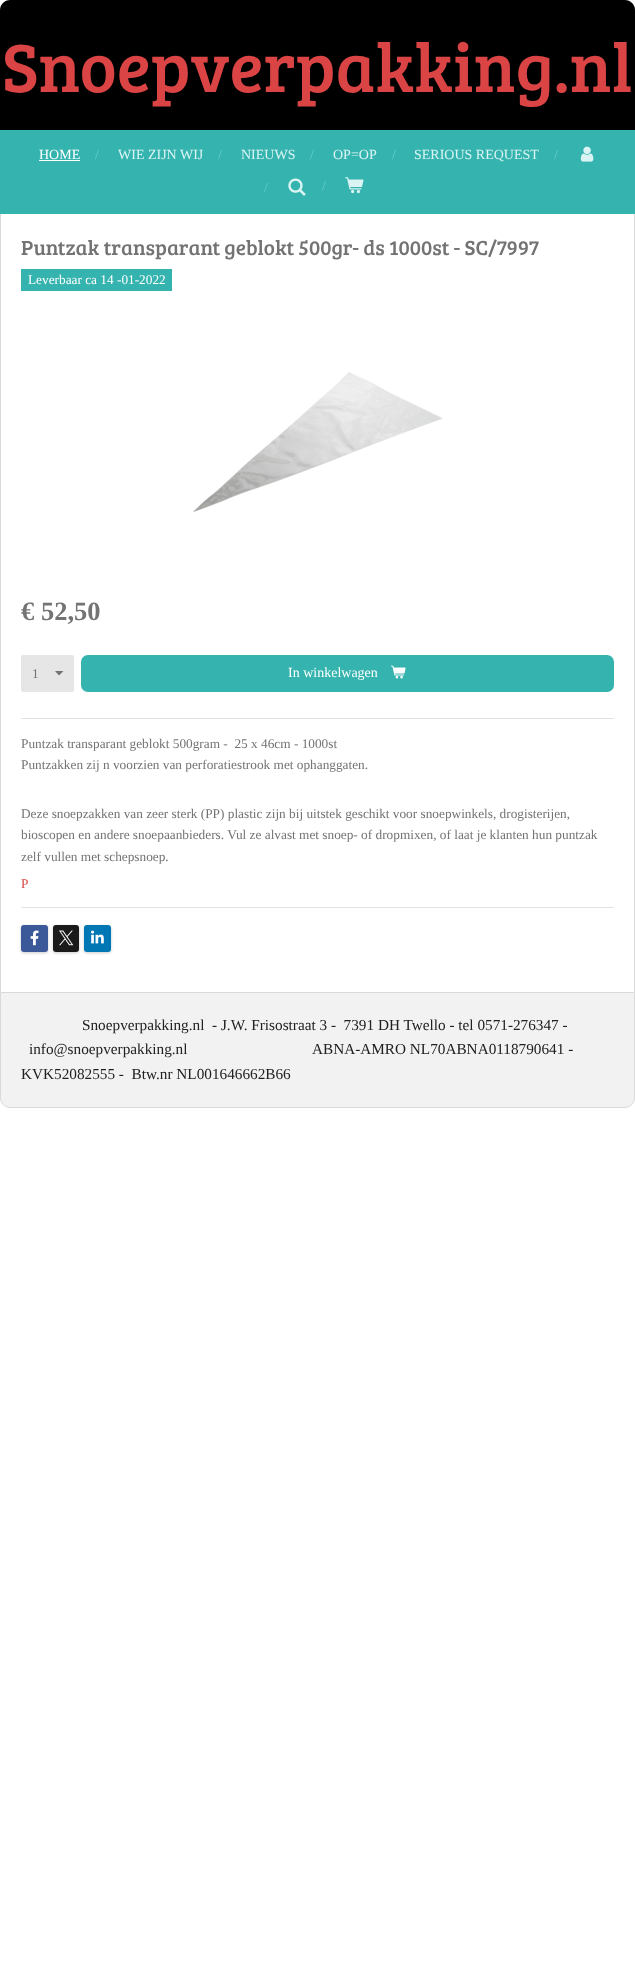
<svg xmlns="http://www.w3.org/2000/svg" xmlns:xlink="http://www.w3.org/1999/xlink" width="635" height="1973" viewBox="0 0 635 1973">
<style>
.cls-1{font:70px Bree Serif;fill:#da4444}
.cls-2{font:14px Liberation Serif;fill:#ffffff}
.cls-3{font:14px Liberation Serif;fill:#64d1cd}
.cls-4{font:14px Liberation Serif;fill:#daf4f3}
.cls-5{font:21px Bree Serif;fill:#737373}
.cls-6{font:13.3px Liberation Serif;fill:#ffffff}
.cls-7{font:bold 26.5px Liberation Serif;fill:#737373}
.cls-8{font:13.3px Liberation Serif;fill:#737373}
.cls-9{font:13.3px Liberation Serif;fill:#da4444}
.cls-10{font:15.25px Liberation Serif;fill:#202020}
</style>
<rect width="100%" height="100%" fill="#ffffff"/>
<path fill="#000000" d="M10 0H625C630.5 0 635 4.5 635 10V130H0V10C0 4.5 4.5 0 10 0Z"/>
<rect fill="#35b3af" x="0" y="130" width="635" height="84"/>
<rect fill="#ffffff" x="39" y="160" width="41" height="1"/>
<image xlink:href="image0.png" x="580" y="146" width="14" height="16"/>
<image xlink:href="image1.png" x="288" y="178" width="18" height="18"/>
<image xlink:href="image2.png" x="345" y="177" width="19" height="17"/>
<rect fill="#d9d9d9" x="634" y="214" width="1" height="778"/>
<rect fill="#d9d9d9" x="0" y="214" width="1" height="778"/>
<rect fill="#35b3af" x="21" y="269" width="151" height="22"/>
<image xlink:href="image3.png" x="193" y="372" width="250" height="140"/>
<rect fill="#e6e6e6" x="21" y="655" width="53" height="37" rx="2"/>
<path fill="#737373" d="M59 675.5L55 671H63.5Z"/>
<rect fill="#35b3af" x="81" y="655" width="533" height="37" rx="7"/>
<image xlink:href="image4.png" x="391" y="665" width="15" height="14"/>
<rect fill="#e3e3e3" x="21" y="718" width="593" height="1"/>
<rect fill="#e3e3e3" x="21" y="907" width="593" height="1"/>
<rect fill="#000000" fill-opacity="0.2" filter="blur(1.5px)" x="21" y="926" width="27" height="27" rx="3"/>
<rect fill="#3b5998" x="21" y="925" width="27" height="27" rx="3"/>
<image xlink:href="image5.png" x="30" y="930" width="9" height="16"/>
<rect fill="#000000" fill-opacity="0.2" filter="blur(1.5px)" x="53" y="926" width="26" height="27" rx="3"/>
<rect fill="#1a1a1a" x="53" y="925" width="26" height="27" rx="3"/>
<image xlink:href="image6.png" x="59" y="930" width="15" height="16"/>
<rect fill="#000000" fill-opacity="0.2" filter="blur(1.5px)" x="84" y="926" width="27" height="27" rx="3"/>
<rect fill="#0077b5" x="84" y="925" width="27" height="27" rx="3"/>
<image xlink:href="image7.png" x="91" y="930" width="13" height="14"/>
<path fill="#f2f2f2" stroke="#d9d9d9" d="M.5 992.5H634.5V1098C634.5 1103 630 1107.5 625 1107.5H10C5 1107.5 .5 1103 .5 1098Z"/>
<text class="cls-1" x="2" y="92">Snoepverpakking.nl</text>
<text class="cls-2" x="39" y="159">HOME</text>
<text class="cls-3" x="95" y="159">/</text>
<text class="cls-4" x="118" y="159">WIE ZIJN WIJ</text>
<text class="cls-3" x="218" y="159">/</text>
<text class="cls-4" x="241" y="159">NIEUWS</text>
<text class="cls-3" x="310" y="159">/</text>
<text class="cls-4" x="333" y="159">OP=OP</text>
<text class="cls-3" x="392" y="159">/</text>
<text class="cls-4" x="414" y="159">SERIOUS REQUEST</text>
<text class="cls-3" x="554" y="159">/</text>
<text class="cls-3" x="264" y="192">/</text>
<text class="cls-3" x="322" y="190">/</text>
<text class="cls-5" x="21" y="255">Puntzak transparant geblokt 500gr- ds 1000st - SC/7997</text>
<text class="cls-6" x="28" y="284">Leverbaar ca 14 -01-2022</text>
<text class="cls-7" x="21" y="620">€ 52,50</text>
<text class="cls-8" x="32" y="678">1</text>
<text class="cls-2" x="288" y="677">In winkelwagen</text>
<text class="cls-8" xml:space="preserve"><tspan x="21" y="748">Puntzak transparant geblokt 500gram -  25 x 46cm - 1000st</tspan><tspan x="21" y="769">Puntzakken zij n voorzien van perforatiestrook met ophanggaten.</tspan></text>
<text class="cls-8"><tspan x="21" y="818">Deze snoepzakken van zeer sterk (PP) plastic zijn bij uitstek geschikt voor snoepwinkels, drogisterijen,</tspan><tspan x="21" y="839">bioscopen en andere snoepaanbieders. Vul ze alvast met snoep- of dropmixen, of laat je klanten hun puntzak</tspan><tspan x="21" y="861">zelf vullen met schepsnoep.</tspan></text>
<text class="cls-9" x="21" y="888">P</text>
<text class="cls-10" xml:space="preserve" x="82" y="1030">Snoepverpakking.nl  - J.W. Frisostraat 3 -  7391 DH Twello - tel 0571-276347 -</text>
<text class="cls-10" x="29" y="1054">info@snoepverpakking.nl</text>
<text class="cls-10" x="312" y="1054">ABNA-AMRO NL70ABNA0118790641 -</text>
<text class="cls-10" xml:space="preserve" x="21" y="1079">KVK52082555 -  Btw.nr NL001646662B66</text>
</svg>
